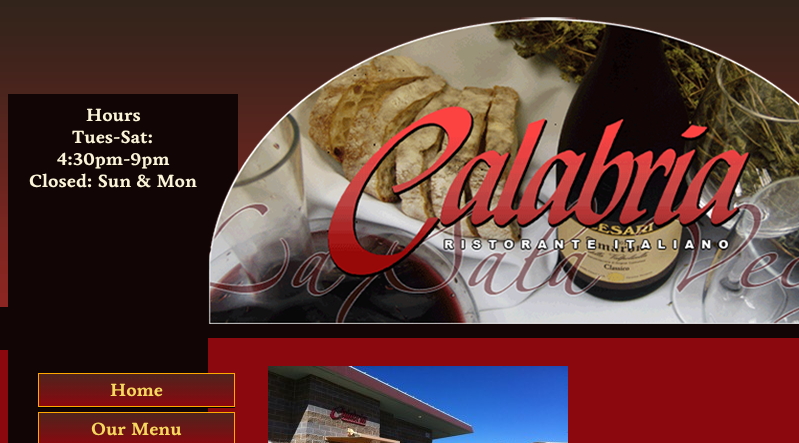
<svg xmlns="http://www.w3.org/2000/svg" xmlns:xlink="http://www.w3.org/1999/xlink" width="799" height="443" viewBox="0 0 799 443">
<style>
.cls-1{font:bold 18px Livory;fill:#fbf4d8}
.cls-2{font:bold 18px Livory;fill:#f6d85e}
</style>
<defs>
<linearGradient id="g1" gradientUnits="userSpaceOnUse" x1="137" y1="374" x2="137" y2="406"><stop offset="0" stop-color="#4f241d"/><stop offset="1" stop-color="#8a080f"/></linearGradient>
<linearGradient id="g2" gradientUnits="userSpaceOnUse" x1="137" y1="413" x2="137" y2="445"><stop offset="0" stop-color="#4f241d"/><stop offset="1" stop-color="#8a080f"/></linearGradient>
</defs>
<rect width="100%" height="100%" fill="#8a080e"/>
<image xlink:href="image0.png" x="0" y="0" width="799" height="350"/>
<image xlink:href="image1.png" x="8" y="17" width="791" height="307"/>
<rect fill="#110505" x="8" y="350" width="200" height="93"/>
<rect fill="#000000" x="38" y="407" width="197" height="1"/>
<rect fill="url(#g1)" x="39" y="374" width="195" height="32"/>
<rect fill="none" stroke="#ffa800" x="38.5" y="373.5" width="196" height="33"/>
<rect fill="url(#g2)" x="39" y="413" width="195" height="30"/>
<rect fill="none" stroke="#ffa800" x="38.5" y="412.5" width="196" height="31"/>
<rect fill="#8a080e" x="208" y="338" width="591" height="12"/>
<image xlink:href="image2.png" x="268" y="366" width="300" height="77"/>
<text class="cls-1" x="86" y="121">Hours</text>
<text class="cls-1" x="72" y="143">Tues-Sat:</text>
<text class="cls-1" x="57" y="165">4:30pm-9pm</text>
<text class="cls-1" x="29" y="187">Closed: Sun &amp; Mon</text>
<text class="cls-2" x="110" y="396">Home</text>
<text class="cls-2" x="91" y="435">Our Menu</text>
</svg>
